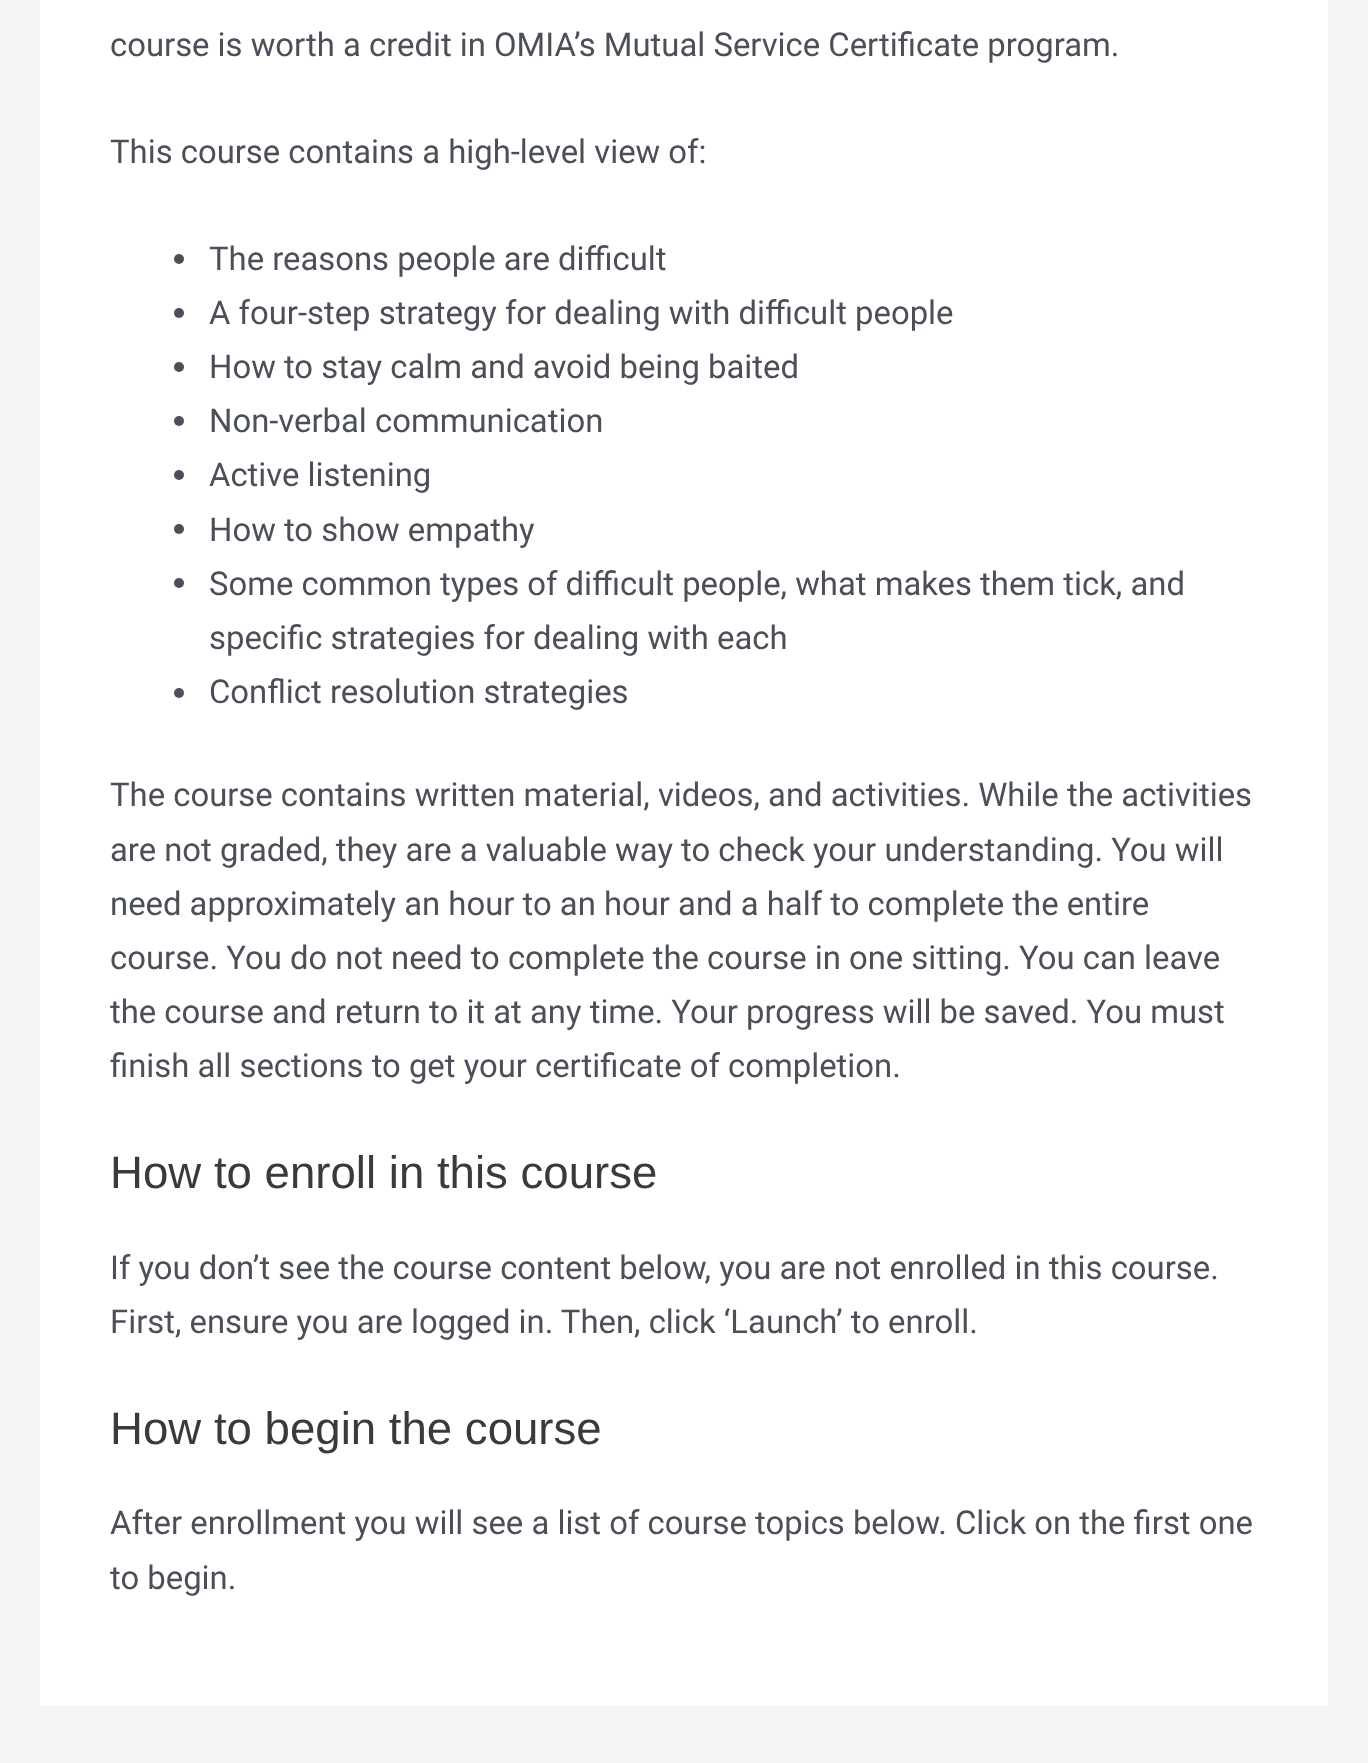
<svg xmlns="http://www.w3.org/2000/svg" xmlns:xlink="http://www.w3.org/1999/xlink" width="1368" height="1763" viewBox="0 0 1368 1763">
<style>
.cls-1{font:32.85px Roboto;fill:#4b4f58}
.cls-2{font:45.6px Liberation Sans;fill:#3a3a3a}
</style>
<rect width="100%" height="100%" fill="#f5f5f5"/>
<rect fill="#ffffff" x="40" y="0" width="1288" height="1706"/>
<circle fill="#4b4f58" cx="179" cy="259" r="5"/>
<circle fill="#4b4f58" cx="179" cy="313" r="5"/>
<circle fill="#4b4f58" cx="179" cy="367" r="5"/>
<circle fill="#4b4f58" cx="179" cy="421" r="5"/>
<circle fill="#4b4f58" cx="179" cy="475" r="5"/>
<circle fill="#4b4f58" cx="179" cy="529" r="5"/>
<circle fill="#4b4f58" cx="179" cy="583" r="5"/>
<circle fill="#4b4f58" cx="179" cy="693" r="5"/>
<text class="cls-1" x="110" y="56">course is worth a credit in OMIA’s Mutual Service Certificate program.</text>
<text class="cls-1" x="110" y="163">This course contains a high-level view of:</text>
<text class="cls-1"><tspan x="209" y="270">The reasons people are difficult</tspan><tspan x="209" y="324">A four-step strategy for dealing with difficult people</tspan><tspan x="209" y="378">How to stay calm and avoid being baited</tspan><tspan x="209" y="432">Non-verbal communication</tspan><tspan x="209" y="486">Active listening</tspan><tspan x="209" y="541">How to show empathy</tspan><tspan x="209" y="595">Some common types of difficult people, what makes them tick, and</tspan><tspan x="209" y="649">specific strategies for dealing with each</tspan><tspan x="209" y="703">Conflict resolution strategies</tspan></text>
<text class="cls-1"><tspan x="110" y="806">The course contains written material, videos, and activities. While the activities</tspan><tspan x="110" y="861">are not graded, they are a valuable way to check your understanding. You will</tspan><tspan x="110" y="915">need approximately an hour to an hour and a half to complete the entire</tspan><tspan x="110" y="969">course. You do not need to complete the course in one sitting. You can leave</tspan><tspan x="110" y="1023">the course and return to it at any time. Your progress will be saved. You must</tspan><tspan x="110" y="1077">finish all sections to get your certificate of completion.</tspan></text>
<text class="cls-2" x="110" y="1188">How to enroll in this course</text>
<text class="cls-1"><tspan x="110" y="1279">If you don’t see the course content below, you are not enrolled in this course.</tspan><tspan x="110" y="1333">First, ensure you are logged in. Then, click ‘Launch’ to enroll.</tspan></text>
<text class="cls-2" x="110" y="1444">How to begin the course</text>
<text class="cls-1"><tspan x="110" y="1534">After enrollment you will see a list of course topics below. Click on the first one</tspan><tspan x="110" y="1589">to begin.</tspan></text>
</svg>
